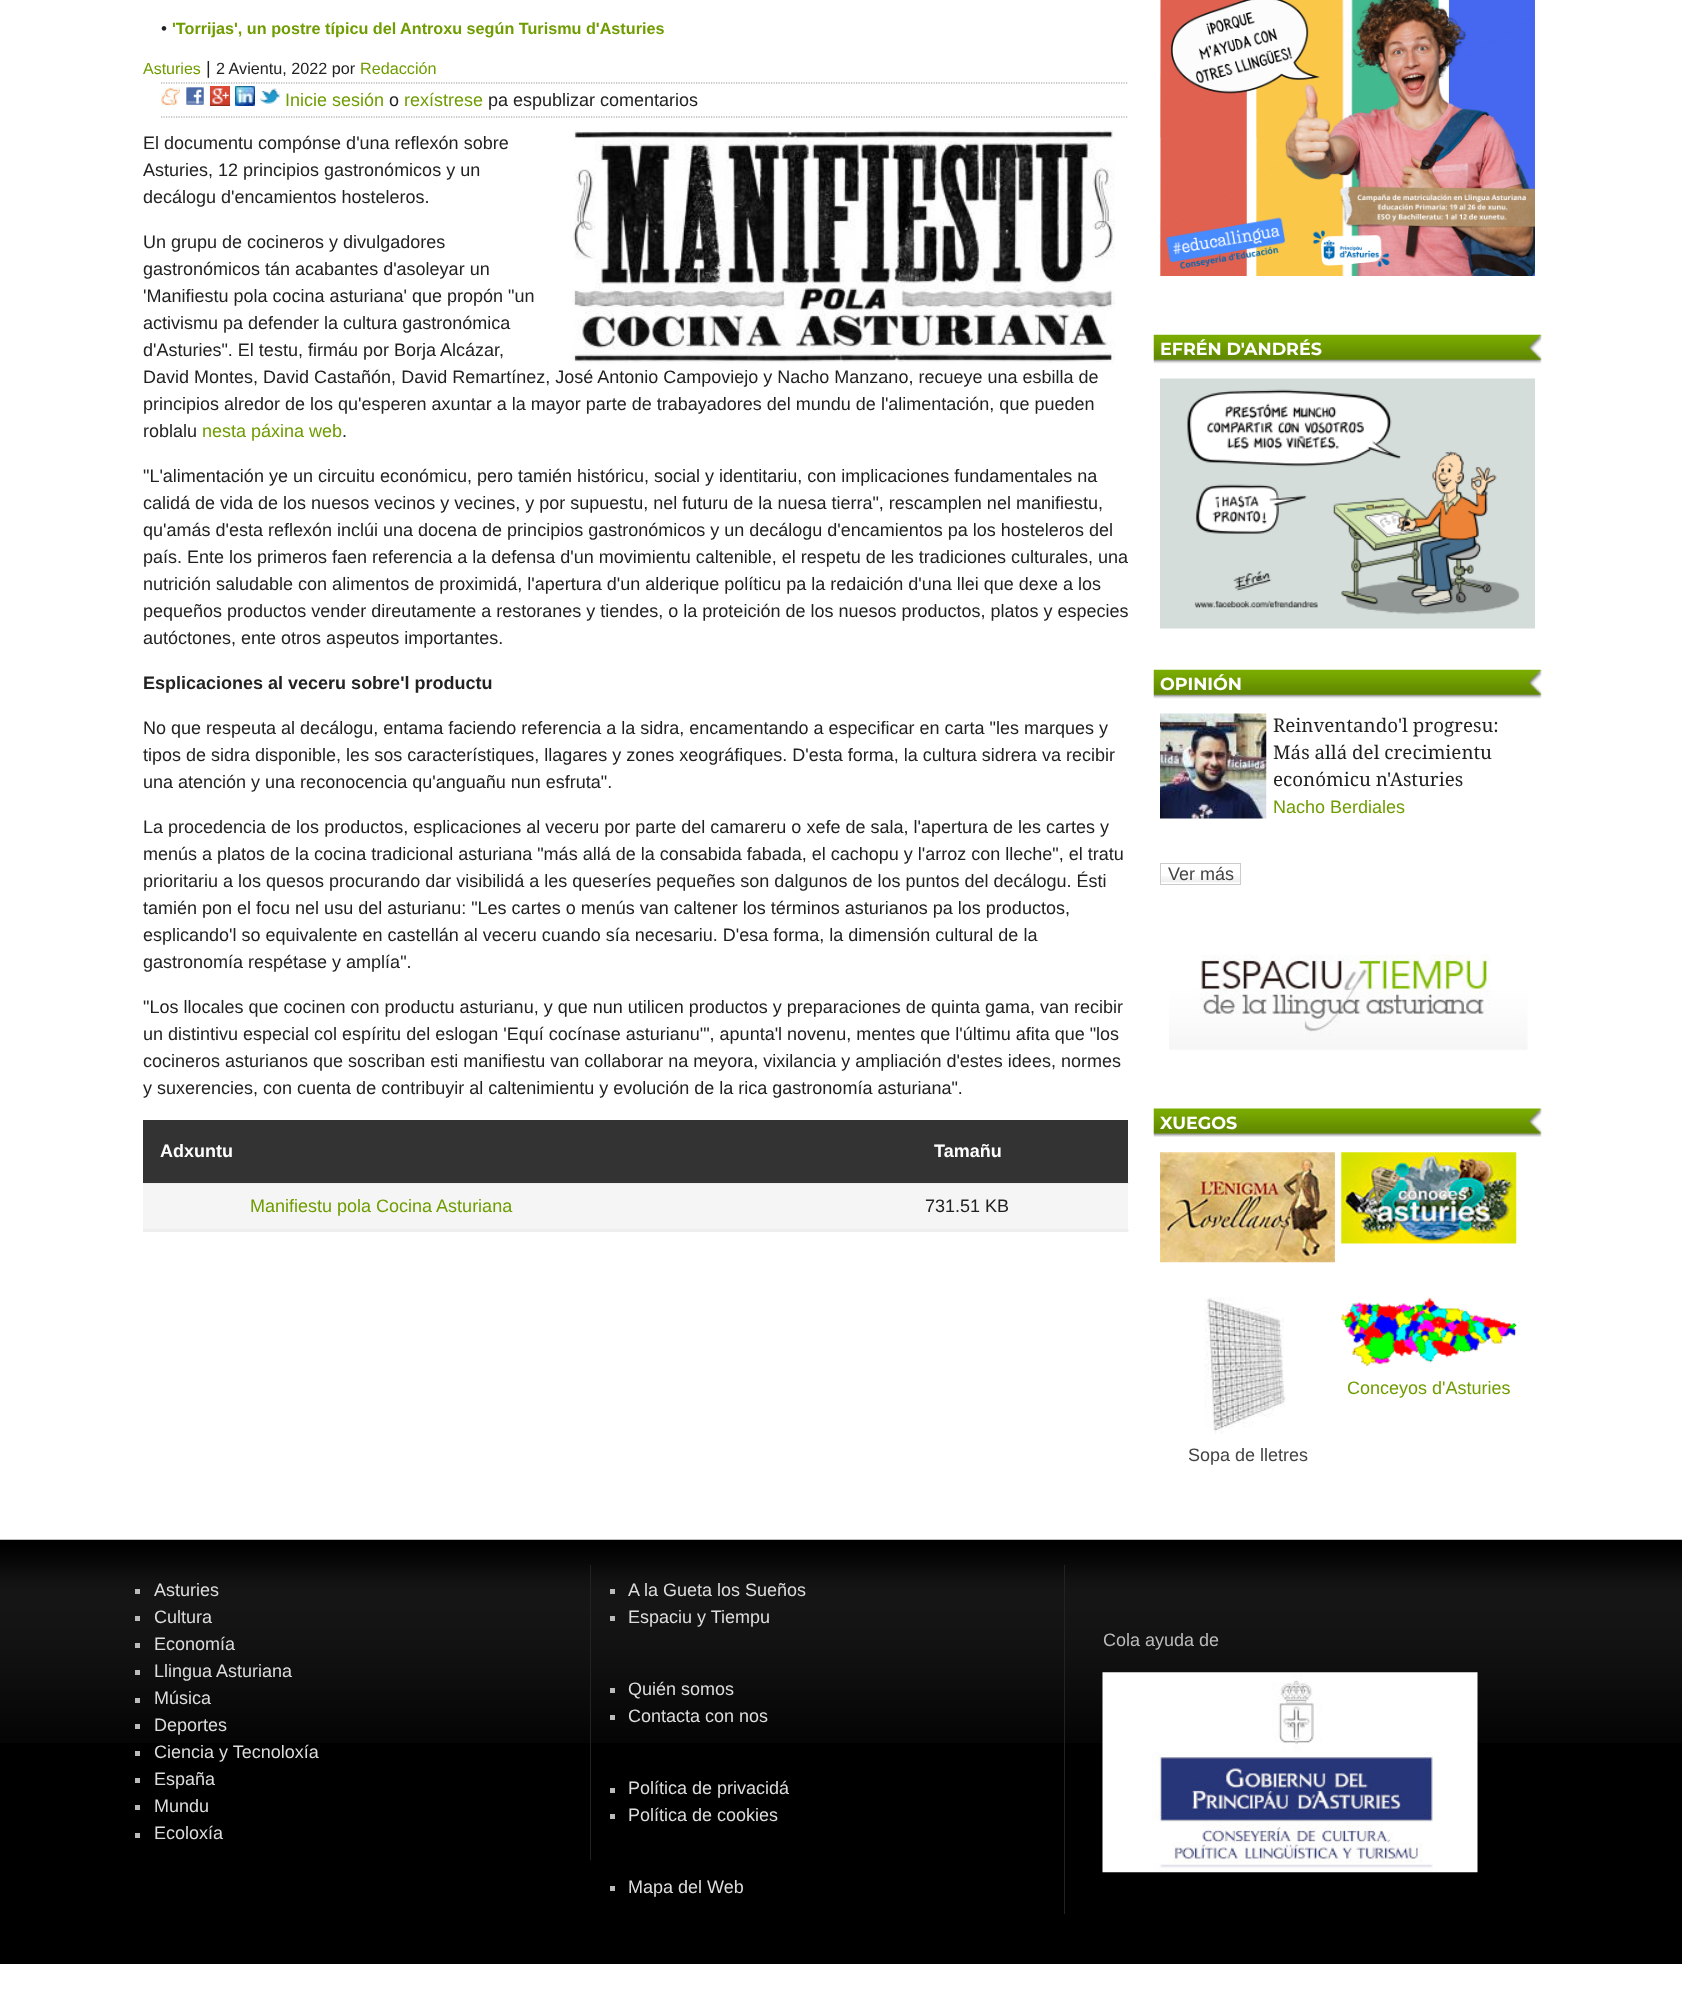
<svg xmlns="http://www.w3.org/2000/svg" xmlns:xlink="http://www.w3.org/1999/xlink" width="1682" height="2003" viewBox="0 0 1682 2003">
<style>
.cls-1{font:17px Liberation Sans;fill:#222222}
.cls-2{font:bold 16.2px Liberation Sans;fill:#6f9c00}
.cls-3{font:16px Liberation Sans;fill:#6f9c00}
.cls-4{font:18px Liberation Sans;fill:#222222}
.cls-5{font:16.2px Liberation Sans;fill:#222222}
.cls-6{font:16.2px Liberation Sans;fill:#6f9c00}
.cls-7{font:18px Liberation Sans;fill:#6f9c00}
.cls-8{font:bold 18px Liberation Sans;fill:#222222}
.cls-9{font:bold 18px Liberation Sans;fill:#ffffff}
.cls-10{font:bold 17.5px Montserrat;fill:#ffffff}
.cls-11{font:18.75px Droid Serif;fill:#222222}
.cls-12{font:18px Liberation Sans;fill:#444444}
.cls-13{font:18px Liberation Sans;fill:#dddddd}
.cls-14{font:18px Liberation Sans;fill:#bbbbbb}
</style>
<rect width="100%" height="100%" fill="#ffffff"/>
<path fill="none" stroke="#999999" stroke-width="1.2" stroke-dasharray="1.25 1.25" d="M161 83H1127.5"/>
<path fill="none" stroke="#999999" stroke-width="1.2" stroke-dasharray="1.25 1.25" d="M161 117H1127.5"/>
<image xlink:href="image0.png" x="161" y="87" width="19" height="19"/>
<image xlink:href="image1.png" x="186" y="87" width="18" height="18"/>
<image xlink:href="image2.png" x="210" y="86" width="20" height="20"/>
<image xlink:href="image3.png" x="235" y="86" width="20" height="20"/>
<image xlink:href="image4.png" x="260" y="88" width="20" height="16"/>
<image xlink:href="image5.png" x="570" y="130" width="545" height="234"/>
<rect fill="#eeeeee" x="143" y="1229" width="985" height="3"/>
<rect fill="#eeeeee" x="143" y="1183" width="986" height="1"/>
<rect fill="#333333" x="143" y="1120" width="985" height="63"/>
<rect fill="#f5f5f5" x="143" y="1184" width="985" height="45"/>
<rect fill="#eeeeee" x="1128" y="1230" width="1" height="1"/>
<image xlink:href="image6.png" x="1160" y="0" width="375" height="276"/>
<image xlink:href="image7.png" x="1153" y="334" width="389" height="30"/>
<image xlink:href="image8.png" x="1160" y="378" width="375" height="251"/>
<image xlink:href="image9.png" x="1153" y="669" width="389" height="30"/>
<image xlink:href="image10.png" x="1160" y="713" width="107" height="106"/>
<image xlink:href="image11.png" x="1161" y="876" width="81" height="7"/>
<rect fill="none" stroke="#cccccc" x="1160.5" y="863.5" width="80" height="21"/>
<image xlink:href="image12.png" x="1169" y="954" width="359" height="96"/>
<image xlink:href="image13.png" x="1153" y="1108" width="389" height="29"/>
<image xlink:href="image14.png" x="1160" y="1152" width="175" height="111"/>
<image xlink:href="image15.png" x="1341" y="1152" width="176" height="92"/>
<image xlink:href="image16.png" x="1341" y="1297" width="176" height="69"/>
<image xlink:href="image17.png" x="1204" y="1297" width="82" height="137"/>
<rect fill="#000000" x="0" y="1743" width="1682" height="221"/>
<image xlink:href="image18.png" x="0" y="1539" width="1682" height="204"/>
<rect fill="#222222" x="590" y="1565" width="1" height="295"/>
<rect fill="#bbbbbb" x="135" y="1589" width="5" height="5"/>
<rect fill="#bbbbbb" x="135" y="1616" width="5" height="5"/>
<rect fill="#bbbbbb" x="135" y="1643" width="5" height="5"/>
<rect fill="#bbbbbb" x="135" y="1670" width="5" height="5"/>
<rect fill="#bbbbbb" x="135" y="1698" width="5" height="5"/>
<rect fill="#bbbbbb" x="135" y="1724" width="5" height="5"/>
<rect fill="#bbbbbb" x="135" y="1751" width="5" height="5"/>
<rect fill="#bbbbbb" x="135" y="1778" width="5" height="5"/>
<rect fill="#bbbbbb" x="135" y="1805" width="5" height="5"/>
<rect fill="#bbbbbb" x="135" y="1833" width="5" height="5"/>
<rect fill="#222222" x="1064" y="1565" width="1" height="349"/>
<rect fill="#bbbbbb" x="610" y="1589" width="5" height="5"/>
<rect fill="#bbbbbb" x="610" y="1616" width="5" height="5"/>
<rect fill="#bbbbbb" x="610" y="1688" width="5" height="5"/>
<rect fill="#bbbbbb" x="610" y="1715" width="5" height="5"/>
<rect fill="#bbbbbb" x="610" y="1788" width="5" height="5"/>
<rect fill="#bbbbbb" x="610" y="1814" width="5" height="5"/>
<rect fill="#bbbbbb" x="610" y="1886" width="5" height="5"/>
<image xlink:href="image19.png" x="1102" y="1672" width="376" height="201"/>
<text class="cls-1" x="161" y="34">•</text>
<text class="cls-2" x="172" y="34">'Torrijas', un postre típicu del Antroxu según Turismu d'Asturies</text>
<text class="cls-3" x="143" y="74">Asturies</text>
<text class="cls-4" x="206" y="74">|</text>
<text class="cls-5" x="216" y="74">2 Avientu, 2022 por</text>
<text class="cls-6" x="360" y="74">Redacción</text>
<text class="cls-7" x="285" y="106">Inicie sesión</text>
<text class="cls-4" x="389" y="106">o</text>
<text class="cls-7" x="404" y="106">rexístrese</text>
<text class="cls-4" x="488" y="106">pa espublizar comentarios</text>
<text class="cls-4"><tspan x="143" y="149">El documentu compónse d'una reflexón sobre</tspan><tspan x="143" y="176">Asturies, 12 principios gastronómicos y un</tspan><tspan x="143" y="203">decálogu d'encamientos hosteleros.</tspan></text>
<text class="cls-4"><tspan x="143" y="248">Un grupu de cocineros y divulgadores</tspan><tspan x="143" y="275">gastronómicos tán acabantes d'asoleyar un</tspan><tspan x="143" y="302">'Manifiestu pola cocina asturiana' que propón "un</tspan><tspan x="143" y="329">activismu pa defender la cultura gastronómica</tspan><tspan x="143" y="356">d'Asturies". El testu, firmáu por Borja Alcázar,</tspan><tspan x="143" y="383">David Montes, David Castañón, David Remartínez, José Antonio Campoviejo y Nacho Manzano, recueye una esbilla de</tspan><tspan x="143" y="410">principios alredor de los qu'esperen axuntar a la mayor parte de trabayadores del mundu de l'alimentación, que pueden</tspan><tspan x="143" y="437">roblalu</tspan></text>
<text class="cls-7" x="202" y="437">nesta páxina web</text>
<text class="cls-4" x="342" y="437">.</text>
<text class="cls-4"><tspan x="143" y="482">"L'alimentación ye un circuitu económicu, pero tamién históricu, social y identitariu, con implicaciones fundamentales na</tspan><tspan x="143" y="509">calidá de vida de los nuesos vecinos y vecines, y por supuestu, nel futuru de la nuesa tierra", rescamplen nel manifiestu,</tspan><tspan x="143" y="536">qu'amás d'esta reflexón inclúi una docena de principios gastronómicos y un decálogu d'encamientos pa los hosteleros del</tspan><tspan x="143" y="563">país. Ente los primeros faen referencia a la defensa d'un movimientu caltenible, el respetu de les tradiciones culturales, una</tspan><tspan x="143" y="590">nutrición saludable con alimentos de proximidá, l'apertura d'un alderique políticu pa la redaición d'una llei que dexe a los</tspan><tspan x="143" y="617">pequeños productos vender direutamente a restoranes y tiendes, o la proteición de los nuesos productos, platos y especies</tspan><tspan x="143" y="644">autóctones, ente otros aspeutos importantes.</tspan></text>
<text class="cls-8" x="143" y="689">Esplicaciones al veceru sobre'l productu</text>
<text class="cls-4"><tspan x="143" y="734">No que respeuta al decálogu, entama faciendo referencia a la sidra, encamentando a especificar en carta "les marques y</tspan><tspan x="143" y="761">tipos de sidra disponible, les sos característiques, llagares y zones xeográfiques. D'esta forma, la cultura sidrera va recibir</tspan><tspan x="143" y="788">una atención y una reconocencia qu'anguañu nun esfruta".</tspan></text>
<text class="cls-4"><tspan x="143" y="833">La procedencia de los productos, esplicaciones al veceru por parte del camareru o xefe de sala, l'apertura de les cartes y</tspan><tspan x="143" y="860">menús a platos de la cocina tradicional asturiana "más allá de la consabida fabada, el cachopu y l'arroz con lleche", el tratu</tspan><tspan x="143" y="887">prioritariu a los quesos procurando dar visibilidá a les queseríes pequeñes son dalgunos de los puntos del decálogu. Ésti</tspan><tspan x="143" y="914">tamién pon el focu nel usu del asturianu: "Les cartes o menús van caltener los términos asturianos pa los productos,</tspan><tspan x="143" y="941">esplicando'l so equivalente en castellán al veceru cuando sía necesariu. D'esa forma, la dimensión cultural de la</tspan><tspan x="143" y="968">gastronomía respétase y amplía".</tspan></text>
<text class="cls-4"><tspan x="143" y="1013">"Los llocales que cocinen con productu asturianu, y que nun utilicen productos y preparaciones de quinta gama, van recibir</tspan><tspan x="143" y="1040">un distintivu especial col espíritu del eslogan 'Equí cocínase asturianu'", apunta'l novenu, mentes que l'últimu afita que "los</tspan><tspan x="143" y="1067">cocineros asturianos que soscriban esti manifiestu van collaborar na meyora, vixilancia y ampliación d'estes idees, normes</tspan><tspan x="143" y="1094">y suxerencies, con cuenta de contribuyir al caltenimientu y evolución de la rica gastronomía asturiana".</tspan></text>
<text class="cls-9" x="160" y="1157">Adxuntu</text>
<text class="cls-9" x="934" y="1157">Tamañu</text>
<text class="cls-7" x="250" y="1212">Manifiestu pola Cocina Asturiana</text>
<text class="cls-4" x="925" y="1212">731.51 KB</text>
<text class="cls-10" x="1160" y="355">EFRÉN D'ANDRÉS</text>
<text class="cls-10" x="1160" y="690">OPINIÓN</text>
<text class="cls-11"><tspan x="1273" y="732">Reinventando'l progresu:</tspan><tspan x="1273" y="759">Más allá del crecimientu</tspan><tspan x="1273" y="786">económicu n'Asturies</tspan></text>
<text class="cls-7" x="1273" y="813">Nacho Berdiales</text>
<text class="cls-12" x="1168" y="880">Ver más</text>
<text class="cls-10" x="1160" y="1129">XUEGOS</text>
<text class="cls-7" x="1347" y="1394">Conceyos d'Asturies</text>
<text class="cls-12" x="1188" y="1461">Sopa de lletres</text>
<text class="cls-13"><tspan x="154" y="1596">Asturies</tspan><tspan x="154" y="1623">Cultura</tspan><tspan x="154" y="1650">Economía</tspan><tspan x="154" y="1677">Llingua Asturiana</tspan><tspan x="154" y="1704">Música</tspan><tspan x="154" y="1731">Deportes</tspan><tspan x="154" y="1758">Ciencia y Tecnoloxía</tspan><tspan x="154" y="1785">España</tspan><tspan x="154" y="1812">Mundu</tspan><tspan x="154" y="1839">Ecoloxía</tspan></text>
<text class="cls-13"><tspan x="628" y="1596">A la Gueta los Sueños</tspan><tspan x="628" y="1623">Espaciu y Tiempu</tspan></text>
<text class="cls-13"><tspan x="628" y="1695">Quién somos</tspan><tspan x="628" y="1722">Contacta con nos</tspan></text>
<text class="cls-13"><tspan x="628" y="1794">Política de privacidá</tspan><tspan x="628" y="1821">Política de cookies</tspan></text>
<text class="cls-13" x="628" y="1893">Mapa del Web</text>
<text class="cls-14" x="1103" y="1646">Cola ayuda de</text>
</svg>
